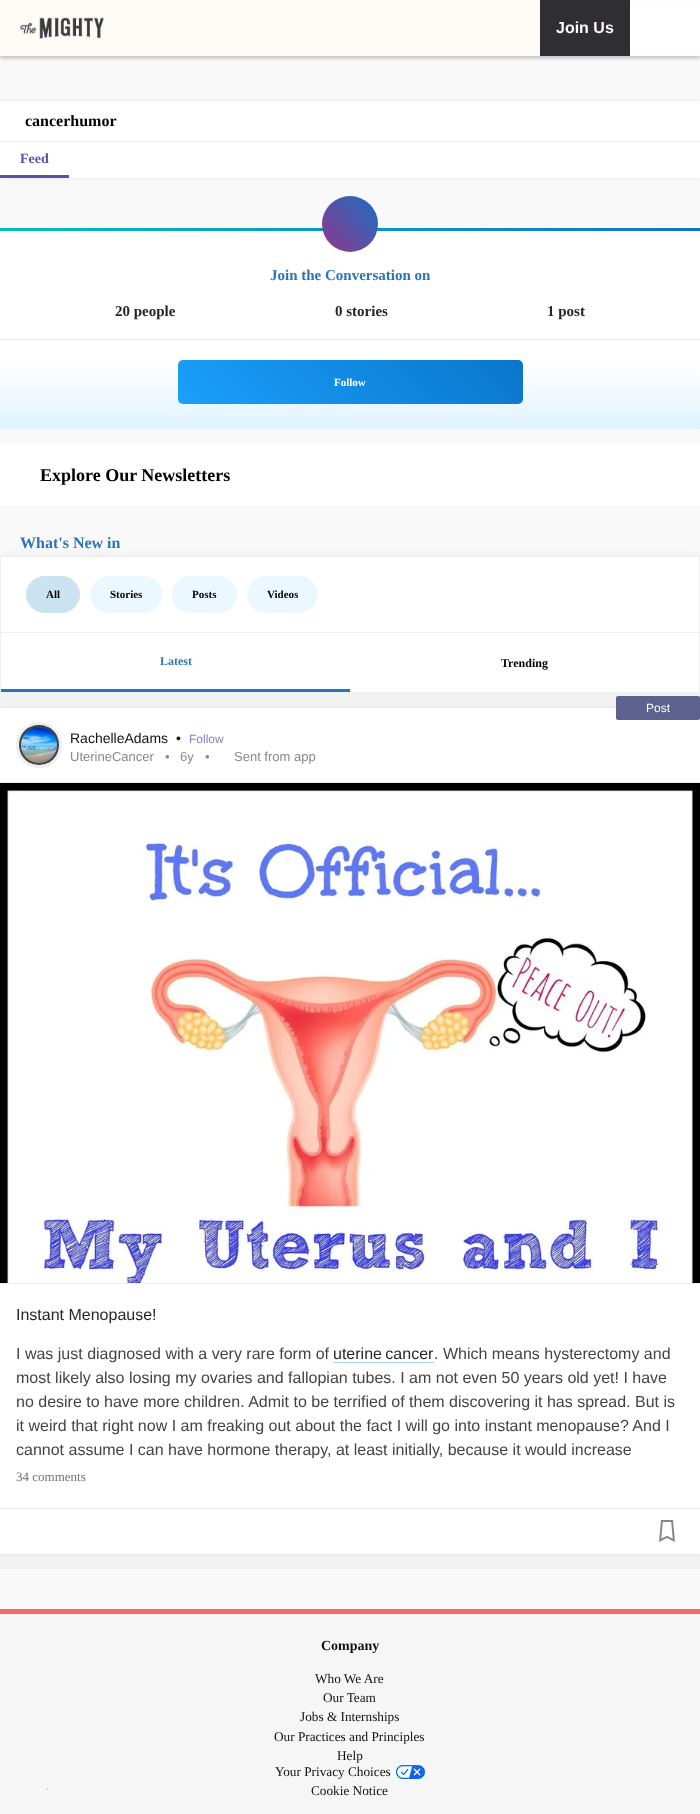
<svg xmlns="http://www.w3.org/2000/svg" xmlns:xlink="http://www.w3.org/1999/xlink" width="700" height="1814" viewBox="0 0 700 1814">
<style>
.cls-1{font:bold 16px Liberation Sans;fill:#fffcf8}
.cls-2{font:bold 16px Liberation Serif;fill:#000000}
.cls-3{font:bold 14px Liberation Serif;fill:#5b50a4}
.cls-4{font:bold 15px Liberation Serif;fill:#2a74bb}
.cls-5{font:bold 15px Liberation Serif;fill:#272727}
.cls-6{font:bold 11px Liberation Serif;fill:#ffffff}
.cls-7{font:bold 18px Liberation Serif;fill:#000000}
.cls-8{font:bold 16px Liberation Serif;fill:#2a74bb}
.cls-9{font:bold 11px Liberation Serif;fill:#000000}
.cls-10{font:bold 12px Liberation Serif;fill:#2a74bb}
.cls-11{font:bold 12px Liberation Serif;fill:#000000}
.cls-12{font:12px Liberation Sans;fill:#ffffff}
.cls-13{font:14px Liberation Sans;fill:#111111}
.cls-14{font:12px Liberation Sans;fill:#7d85bf}
.cls-15{font:13px Liberation Sans;fill:#868788}
.cls-16{font:16px Liberation Sans;fill:#272727}
.cls-17{font:16px Liberation Sans;fill:#444444}
.cls-18{font:13px Liberation Serif;fill:#737373}
.cls-19{font:bold 14px Liberation Serif;fill:#111111}
.cls-20{font:13.25px Liberation Serif;fill:#111111}
</style>
<defs>
<linearGradient id="g1" gradientUnits="userSpaceOnUse" x1="350" y1="231" x2="350" y2="443"><stop offset="0.62" stop-color="#ffffff"/><stop offset="1" stop-color="#d9f0ff"/></linearGradient>
<linearGradient id="g2" gradientUnits="userSpaceOnUse" x1="321" y1="251" x2="386" y2="191"><stop offset="0.06" stop-color="#893b8d"/><stop offset="1" stop-color="#0b75cb"/></linearGradient>
<linearGradient id="g3" gradientUnits="userSpaceOnUse" x1="253" y1="479" x2="448" y2="285"><stop offset="0" stop-color="#1aa0fb"/><stop offset="1" stop-color="#0b75cb"/></linearGradient>
</defs>
<rect width="100%" height="100%" fill="#f9f9f9"/>
<rect fill="#000000" fill-opacity="0.25" filter="blur(2px)" x="0" y="2" width="700" height="56"/>
<rect fill="#fffcf8" x="0" y="0" width="700" height="56"/>
<image xlink:href="image0.png" x="20" y="17" width="84" height="22"/>
<rect fill="#2f2f33" x="540" y="0" width="90" height="56"/>
<rect fill="#ffffff" x="630" y="1" width="70" height="54"/>
<rect fill="#000000" fill-opacity="0.08" filter="blur(2px)" x="0" y="101" width="700" height="77"/>
<rect fill="#ffffff" x="0" y="101" width="700" height="77"/>
<rect fill="#eeeff0" x="0" y="141" width="700" height="1"/>
<rect fill="#5b50a4" x="0" y="175" width="69" height="3"/>
<rect fill="url(#g1)" x="0" y="231" width="700" height="198"/>
<image xlink:href="image1.png" x="0" y="228" width="700" height="3"/>
<rect fill="#e8e8e8" x="0" y="339" width="700" height="1"/>
<circle fill="url(#g2)" cx="350" cy="224" r="28"/>
<rect fill="url(#g3)" x="178" y="360" width="345" height="44" rx="5"/>
<rect fill="#ffffff" x="0" y="444" width="700" height="62"/>
<rect fill="#000000" fill-opacity="0.07" filter="blur(5px)" x="0" y="556" width="700" height="137"/>
<rect fill="#ffffff" stroke="#eeeff0" x="0.5" y="556.5" width="699" height="136"/>
<rect fill="#cbe2f0" x="26" y="576" width="54" height="37" rx="18.5"/>
<rect fill="#ecf8ff" x="90" y="576" width="72" height="37" rx="18.5"/>
<rect fill="#ecf8ff" x="172" y="576" width="65" height="37" rx="18.5"/>
<rect fill="#ecf8ff" x="247" y="576" width="71" height="37" rx="18.5"/>
<rect fill="#eeeff0" x="1" y="632" width="698" height="1"/>
<rect fill="#2a74bb" x="1" y="689" width="349" height="3"/>
<rect fill="#f2f2f2" x="0" y="693" width="700" height="876"/>
<rect fill="#000000" fill-opacity="0.08" filter="blur(2px)" x="0" y="708" width="700" height="846"/>
<rect fill="#ffffff" x="0" y="708" width="700" height="846"/>
<rect fill="#5c628d" x="616" y="696" width="84" height="24" rx="2"/>
<circle fill="none" stroke="#eeeeee" stroke-width="3" cx="39" cy="745" r="21.5"/>
<image xlink:href="image2.png" x="21" y="727" width="36" height="36"/>
<circle fill="none" stroke="#444444" stroke-width="2" cx="39" cy="745" r="19"/>
<rect fill="#eeeeee" x="0" y="782" width="700" height="502"/>
<rect fill="#000000" x="0" y="783" width="700" height="500"/>
<image xlink:href="image3.png" x="7" y="790" width="686" height="493"/>
<rect fill="#acd6f8" x="333" y="1362" width="101" height="1"/>
<rect fill="#e7e7e7" x="0" y="1508" width="700" height="1"/>
<image xlink:href="image4.png" x="659" y="1520" width="16" height="22"/>
<rect fill="#f6f6f6" x="0" y="1614" width="700" height="200"/>
<rect fill="#dbdbdb" x="46" y="1788" width="2" height="2"/>
<rect fill="#ef6b65" x="0" y="1609" width="700" height="5"/>
<image xlink:href="image5.png" x="396" y="1765" width="29" height="14"/>
<text class="cls-1" x="556" y="33">Join Us</text>
<text class="cls-2" x="25" y="126">cancerhumor</text>
<text class="cls-3" x="20" y="163">Feed</text>
<text class="cls-4" x="270" y="280">Join the Conversation on</text>
<text class="cls-5" x="115" y="316">20 people</text>
<text class="cls-5" x="335" y="316">0 stories</text>
<text class="cls-5" x="547" y="316">1 post</text>
<text class="cls-6" x="334" y="386">Follow</text>
<text class="cls-7" x="40" y="481">Explore Our Newsletters</text>
<text class="cls-8" x="20" y="548">What's New in</text>
<text class="cls-9" x="46" y="598">All</text>
<text class="cls-9" x="110" y="598">Stories</text>
<text class="cls-9" x="192" y="598">Posts</text>
<text class="cls-9" x="267" y="598">Videos</text>
<text class="cls-10" x="160" y="665">Latest</text>
<text class="cls-11" x="501" y="667">Trending</text>
<text class="cls-12" x="646" y="712">Post</text>
<text class="cls-13" x="70" y="743">RachelleAdams</text>
<text class="cls-13" x="176" y="743">•</text>
<text class="cls-14" x="189" y="743">Follow</text>
<text class="cls-15" x="70" y="761">UterineCancer</text>
<text class="cls-15" x="165" y="761">•</text>
<text class="cls-15" x="180" y="761">6y</text>
<text class="cls-15" x="205" y="761">•</text>
<text class="cls-15" x="234" y="761">Sent from app</text>
<text class="cls-16" x="16" y="1320">Instant Menopause!</text>
<text class="cls-17" x="16" y="1359">I was just diagnosed with a very rare form of</text>
<text class="cls-16" x="333" y="1359" word-spacing="-1">uterine cancer</text>
<text class="cls-17" x="434" y="1359">. Which means hysterectomy and</text>
<text class="cls-17"><tspan x="16" y="1383">most likely also losing my ovaries and fallopian tubes. I am not even 50 years old yet! I have</tspan><tspan x="16" y="1407">no desire to have more children. Admit to be terrified of them discovering it has spread. But is</tspan><tspan x="16" y="1431">it weird that right now I am freaking out about the fact I will go into instant menopause? And I</tspan><tspan x="16" y="1455">cannot assume I can have hormone therapy, at least initially, because it would increase</tspan></text>
<text class="cls-18" x="16" y="1481">34 comments</text>
<text class="cls-19" x="321" y="1650">Company</text>
<text class="cls-20" x="315" y="1683">Who We Are</text>
<text class="cls-20" x="323" y="1702">Our Team</text>
<text class="cls-20" x="300" y="1721">Jobs &amp; Internships</text>
<text class="cls-20" x="274" y="1741">Our Practices and Principles</text>
<text class="cls-20" x="337" y="1760">Help</text>
<text class="cls-20" x="275" y="1776">Your Privacy Choices</text>
<text class="cls-20" x="311" y="1795">Cookie Notice</text>
</svg>
